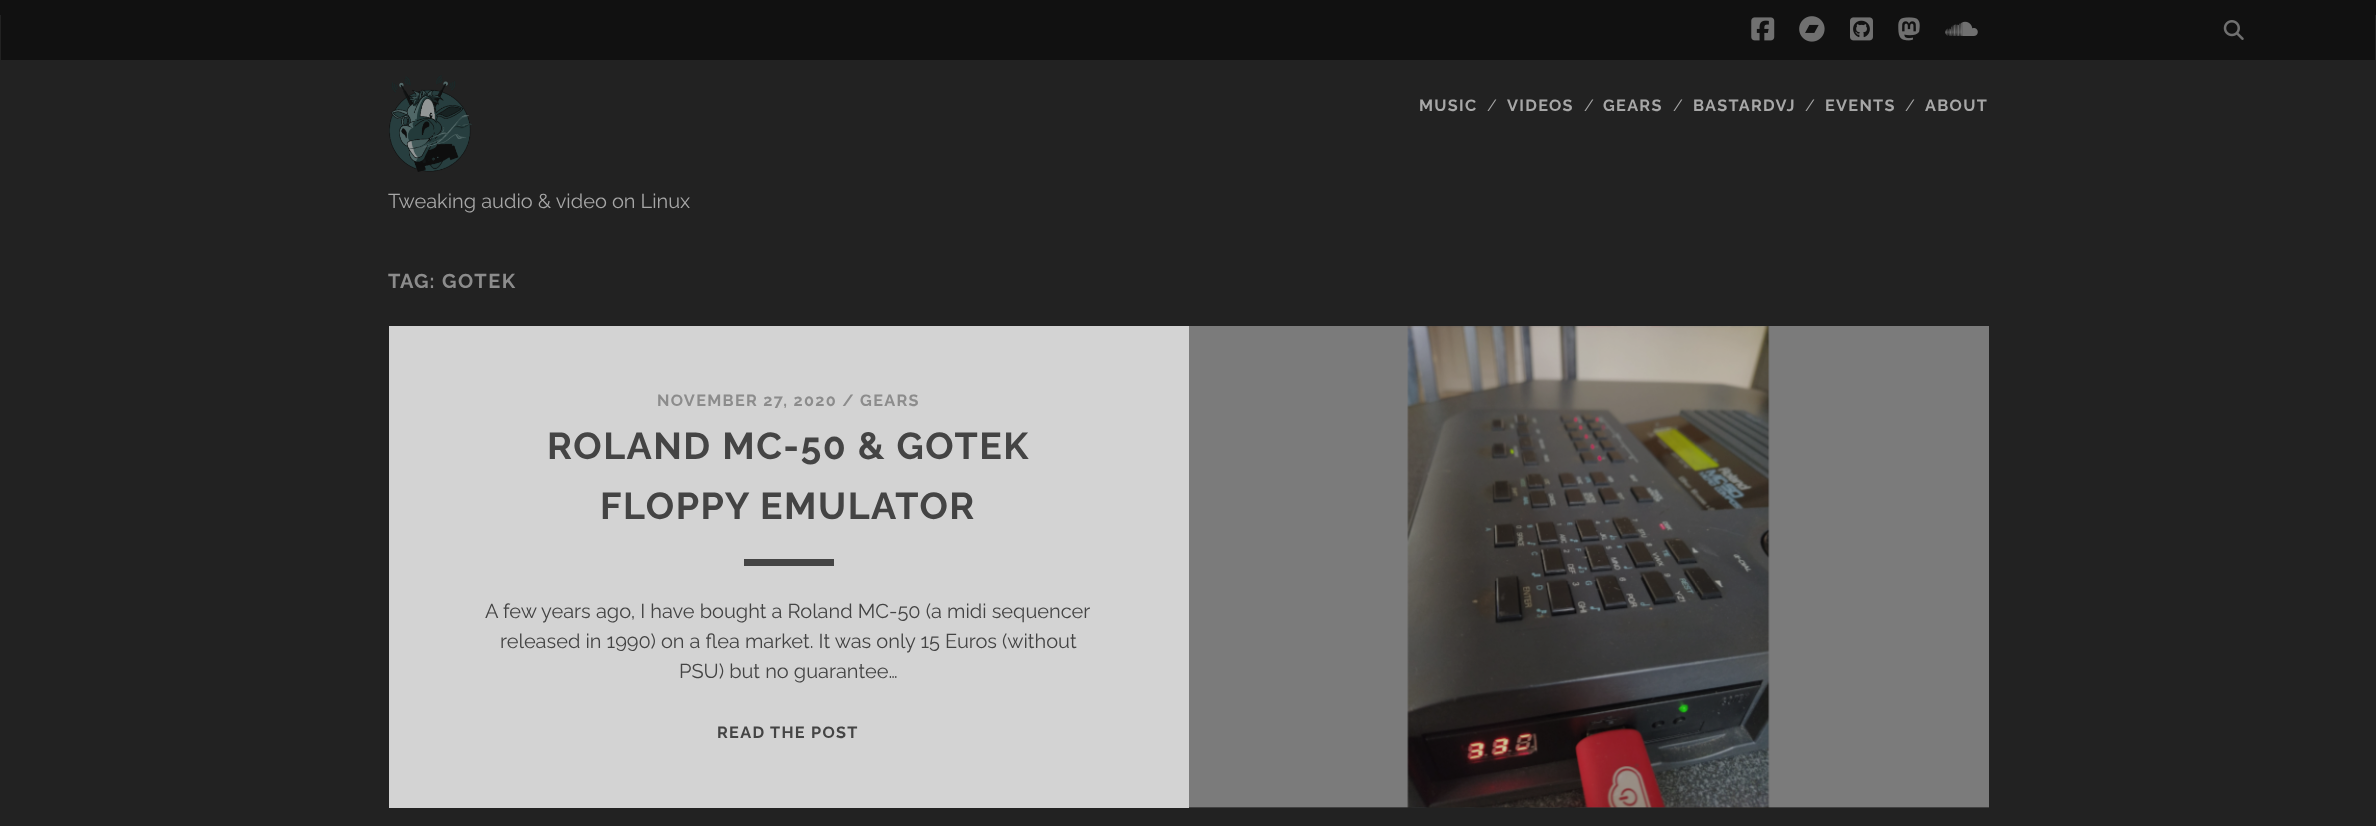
<svg xmlns="http://www.w3.org/2000/svg" xmlns:xlink="http://www.w3.org/1999/xlink" width="2376" height="826" viewBox="0 0 2376 826">
<style>
.cls-1{font:bold 16.25px Raleway;letter-spacing:1.3px;fill:#a7a7a7}
.cls-2{font:16.25px Raleway;fill:#a7a7a7}
.cls-3{font:20px Raleway;fill:#a7a7a7}
.cls-4{font:bold 20px Raleway;letter-spacing:1px;fill:#8c8c8c}
.cls-5{font:bold 20px Raleway;letter-spacing:1.5px;fill:#8c8c8c}
.cls-6{font:bold 16.25px Raleway;letter-spacing:1.3px;fill:#8c8c8c}
.cls-7{font:bold 37.5px Raleway;letter-spacing:1.5px;fill:#444444}
.cls-8{font:20px Raleway;fill:#444444}
.cls-9{font:bold 16.25px Raleway;letter-spacing:1.3px;fill:#444444}
</style>
<rect width="100%" height="100%" fill="#222222"/>
<rect fill="#111111" x="0" y="0" width="2376" height="15"/>
<rect fill="#111111" x="1" y="15" width="2374" height="45"/>
<image xlink:href="image0.png" x="1751" y="17" width="24" height="24"/>
<image xlink:href="image1.png" x="1799" y="16" width="26" height="26"/>
<image xlink:href="image2.png" x="1850" y="17" width="23" height="24"/>
<image xlink:href="image3.png" x="1898" y="17" width="22" height="24"/>
<image xlink:href="image4.png" x="1945" y="21" width="33" height="15"/>
<image xlink:href="image5.png" x="2223" y="20" width="21" height="20"/>
<image xlink:href="image6.png" x="389" y="75" width="83" height="97"/>
<rect fill="#141414" x="1189" y="326" width="800" height="482"/>
<rect fill="#d3d3d3" x="389" y="326" width="800" height="482"/>
<rect fill="#444444" x="744" y="559" width="90" height="7"/>
<image xlink:href="image7.png" x="1189" y="326" width="800" height="482"/>
<text class="cls-1" x="1419" y="111">MUSIC</text>
<text class="cls-2" x="1487" y="111">/</text>
<text class="cls-1" x="1507" y="111">VIDEOS</text>
<text class="cls-2" x="1584" y="111">/</text>
<text class="cls-1" x="1603" y="111">GEARS</text>
<text class="cls-2" x="1673" y="111">/</text>
<text class="cls-1" x="1693" y="111">BASTARDVJ</text>
<text class="cls-2" x="1805" y="111">/</text>
<text class="cls-1" x="1825" y="111">EVENTS</text>
<text class="cls-2" x="1905" y="111">/</text>
<text class="cls-1" x="1925" y="111">ABOUT</text>
<text class="cls-3" x="388" y="208">Tweaking audio &amp; video on Linux</text>
<text class="cls-4" x="388" y="288">TAG:</text>
<text class="cls-5" x="442" y="288">GOTEK</text>
<text class="cls-6" x="657" y="406">NOVEMBER 27, 2020 / GEARS</text>
<text class="cls-7" x="547" y="459">ROLAND MC-50 &amp; GOTEK</text>
<text class="cls-7" x="600" y="519">FLOPPY EMULATOR</text>
<text class="cls-8" x="485" y="618">A few years ago, I have bought a Roland MC-50 (a midi sequencer</text>
<text class="cls-8" x="500" y="648">released in 1990) on a flea market. It was only 15 Euros (without</text>
<text class="cls-8" x="679" y="678">PSU) but no guarantee…</text>
<text class="cls-9" x="717" y="738">READ THE POST</text>
</svg>
